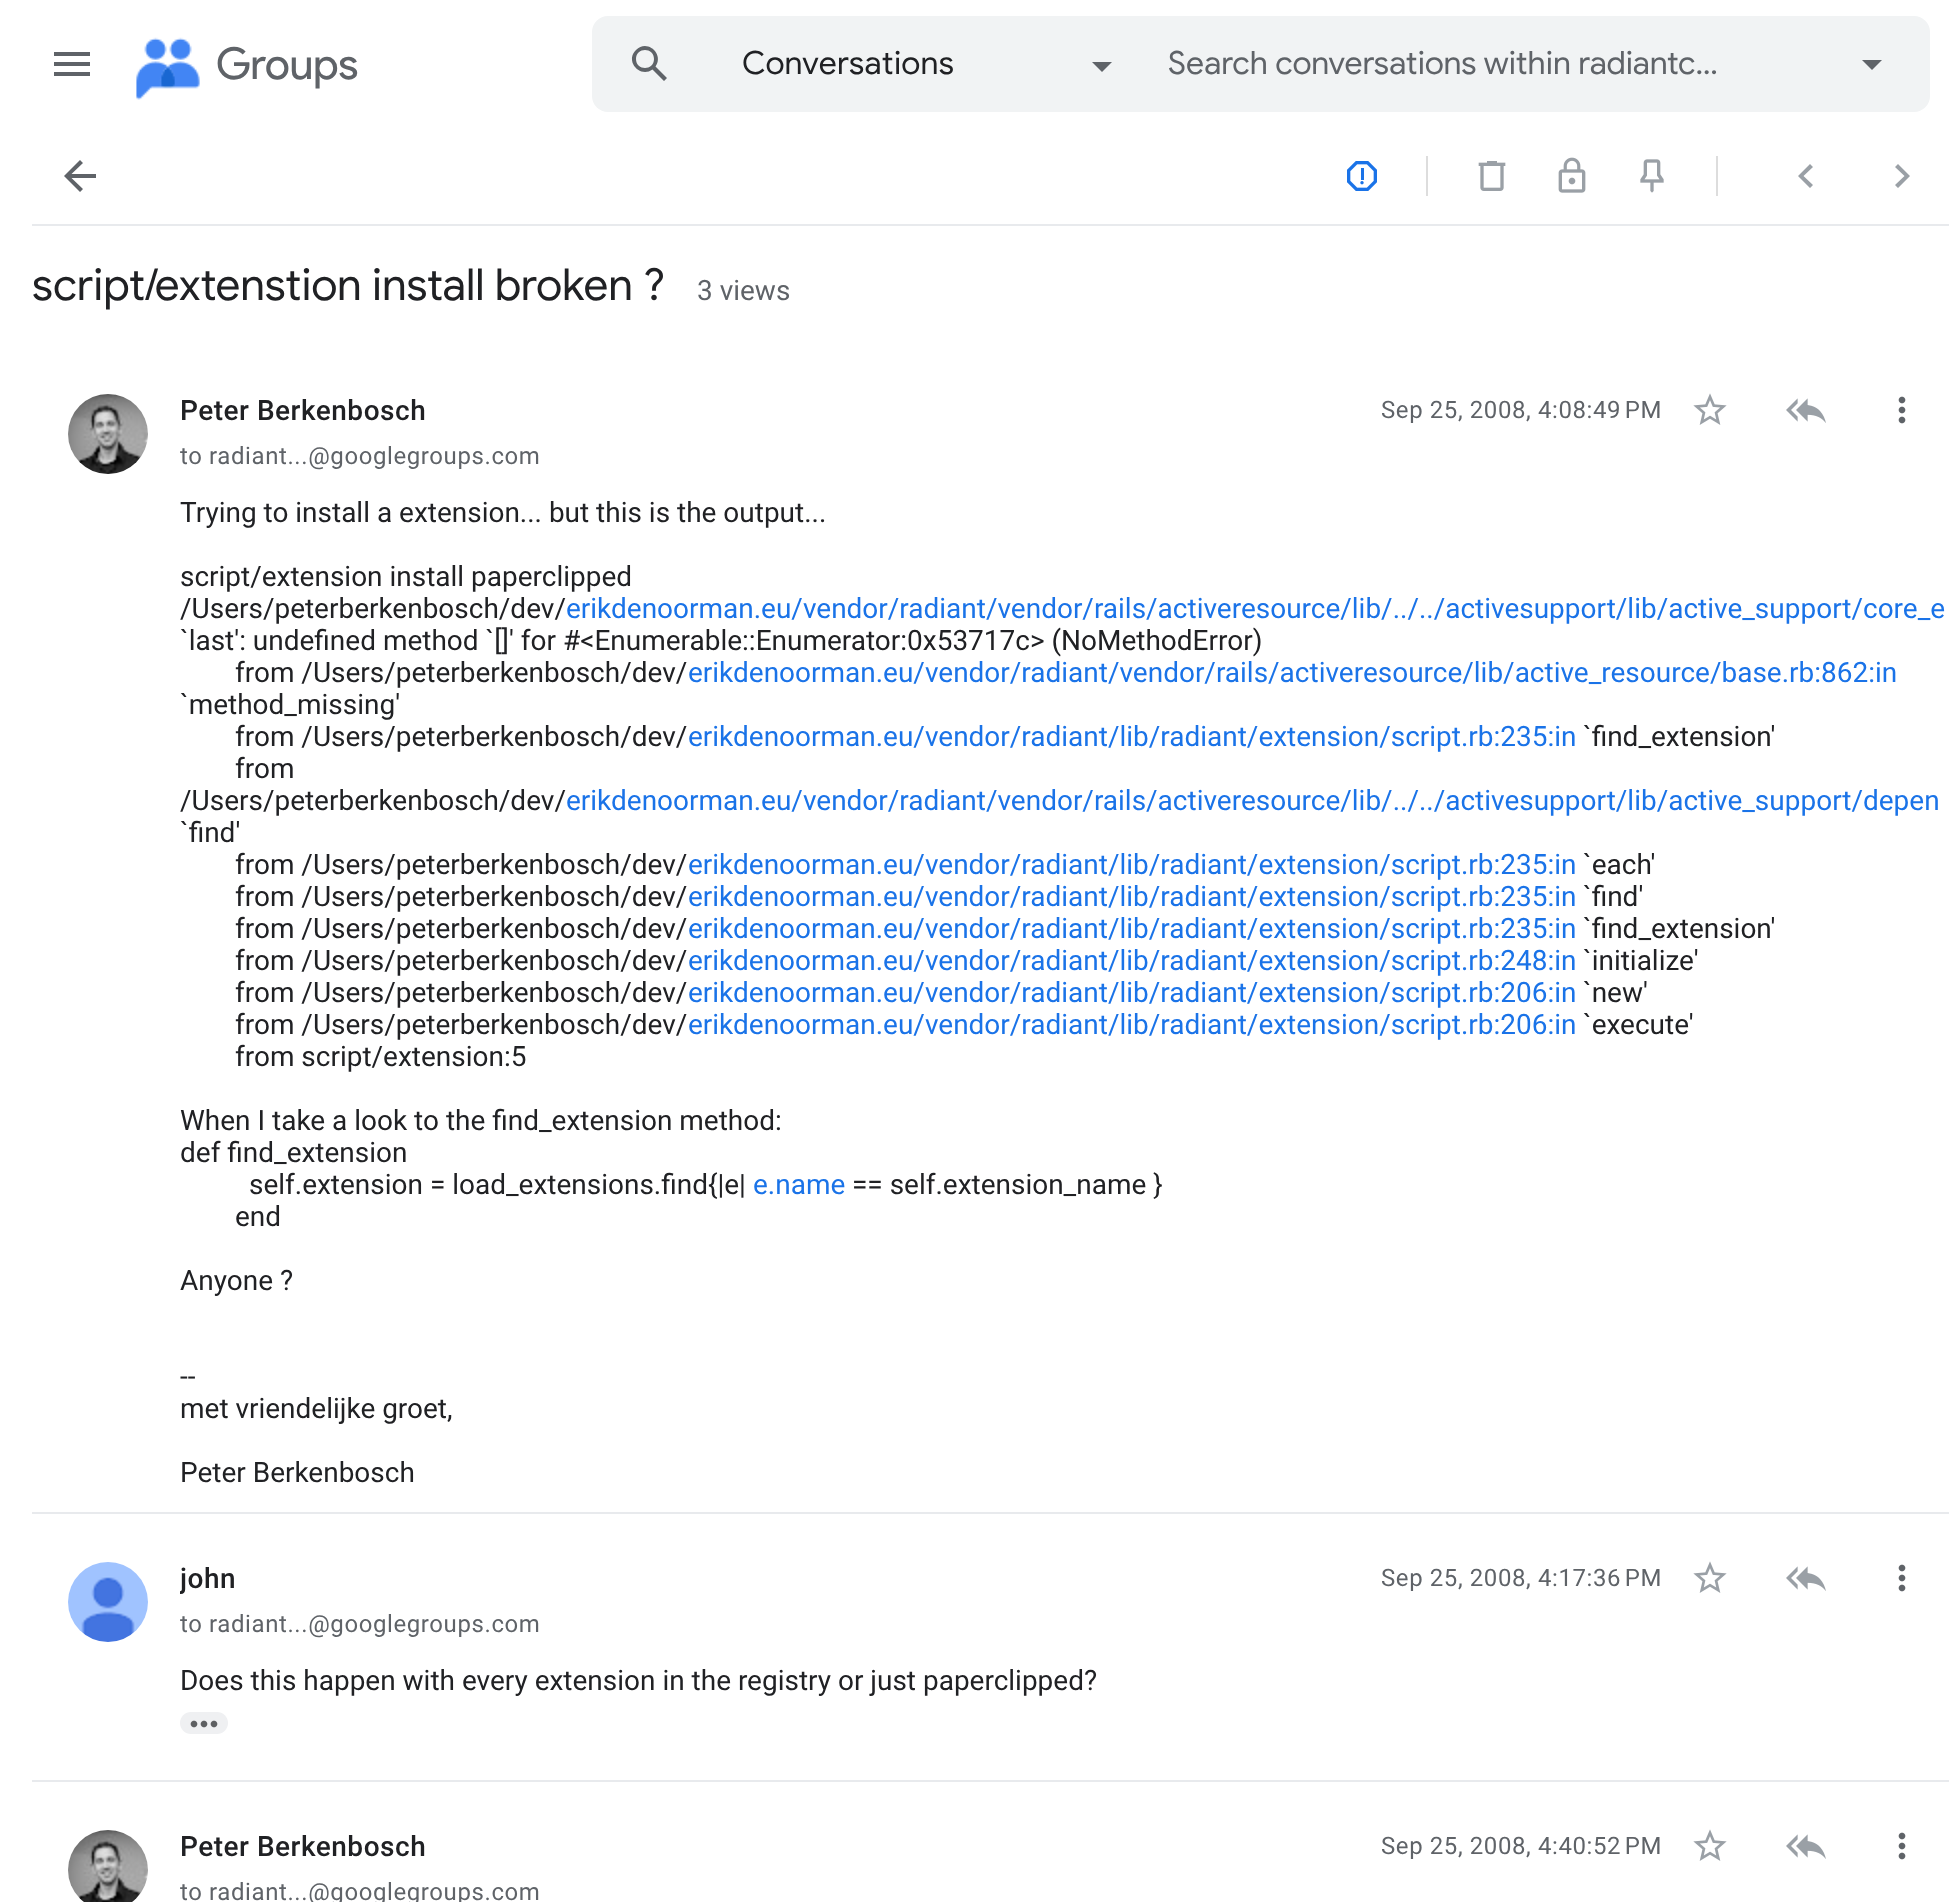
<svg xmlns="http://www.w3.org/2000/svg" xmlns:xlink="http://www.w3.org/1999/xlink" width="1949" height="1902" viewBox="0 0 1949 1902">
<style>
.cls-1{font:44px Product Sans;fill:#5f6368}
.cls-2{font:32px Google Sans;letter-spacing:0.4px;fill:#202124}
.cls-3{font:32px Google Sans;fill:#5f6368}
.cls-4{font:44px Google Sans;fill:#202124}
.cls-5{font:28px Roboto;fill:#5f6368}
.cls-6{font:500 28px Roboto;letter-spacing:0.5px;fill:#202124}
.cls-7{font:24px Roboto;letter-spacing:0.6px;fill:#5f6368}
.cls-8{font:28px Roboto;fill:#202124}
.cls-9{font:28px Roboto;fill:#1a73e8}
</style>
<defs>
<clipPath id="clip1"><rect x="180" y="1558" width="88" height="40"/></clipPath>
</defs>
<rect width="100%" height="100%" fill="#ffffff"/>
<path fill="#5f6368" d="M54 76H90V72H54ZM54 66H90V62H54ZM54 52V56H90V52Z"/>
<image xlink:href="image0.png" x="136" y="37" width="64" height="63"/>
<rect fill="#f1f3f4" x="592" y="16" width="1338" height="96" rx="16"/>
<path fill="#5f6368" d="M667 78L655.5 66.5C664.5 54 647 38.5 636 50C624.5 61 640 78.5 652.5 69.5L664 81ZM636 59C636 47 654 47 654 59C654 71 636 71 636 59Z"/>
<path fill="#5f6368" d="M1092 62H1112L1102 72Z"/>
<path fill="#5f6368" d="M1862 60L1872 70L1882 60Z"/>
<rect fill="#e8eaed" x="32" y="224" width="1917" height="2"/>
<path fill="#5f6368" d="M96 174V178H71.5L83 189L80 192L64 176L80 160L83 163L71.5 174Z"/>
<image xlink:href="image1.png" x="1347" y="161" width="30" height="30"/>
<rect fill="#dddddd" x="1426" y="156" width="2" height="40"/>
<image xlink:href="image2.png" x="1478" y="161" width="28" height="30"/>
<image xlink:href="image3.png" x="1558" y="157" width="28" height="36"/>
<image xlink:href="image4.png" x="1640" y="159" width="24" height="34"/>
<rect fill="#dddddd" x="1716" y="156" width="2" height="40"/>
<path fill="#9aa0a6" d="M1813 167L1803.5 176L1813 185L1810 188L1798 176L1810 164Z"/>
<path fill="#9aa0a6" d="M1898 164L1910 176L1898 188L1895 185L1904.5 176L1895 167Z"/>
<rect fill="#e8eaed" x="32" y="1512" width="1917" height="2"/>
<image xlink:href="image5.png" x="68" y="394" width="80" height="80"/>
<image xlink:href="image6.png" x="1693" y="393" width="34" height="32"/>
<image xlink:href="image7.png" x="1786" y="398" width="40" height="25"/>
<image xlink:href="image8.png" x="1898" y="396" width="8" height="28"/>
<rect fill="#e8eaed" x="32" y="1780" width="1917" height="2"/>
<image xlink:href="image9.png" x="68" y="1562" width="80" height="80"/>
<image xlink:href="image6.png" x="1693" y="1561" width="34" height="32"/>
<image xlink:href="image7.png" x="1786" y="1566" width="40" height="25"/>
<image xlink:href="image8.png" x="1898" y="1564" width="8" height="28"/>
<rect fill="#eff0f2" x="180" y="1712" width="48" height="22" rx="11"/>
<image xlink:href="image10.png" x="190" y="1720" width="28" height="8"/>
<image xlink:href="image11.png" x="68" y="1830" width="80" height="72"/>
<image xlink:href="image6.png" x="1693" y="1829" width="34" height="32"/>
<image xlink:href="image7.png" x="1786" y="1834" width="40" height="25"/>
<image xlink:href="image8.png" x="1898" y="1832" width="8" height="28"/>
<text class="cls-1" x="216" y="79">Groups</text>
<text class="cls-2" x="742" y="74">Conversations</text>
<text class="cls-3" x="1168" y="74">Search conversations within radiantc…</text>
<text class="cls-4" x="32" y="300">script/extenstion install broken ?</text>
<text class="cls-5" x="697" y="300">3 views</text>
<text class="cls-6" x="180" y="420">Peter Berkenbosch</text>
<text class="cls-7" x="1381" y="418">Sep 25, 2008, 4:08:49 PM</text>
<text class="cls-7" x="180" y="464">to radiant...@googlegroups.com</text>
<text class="cls-8" x="180" y="522">Trying to install a extension... but this is the output...</text>
<text class="cls-8"><tspan x="180" y="586">script/extension install paperclipped</tspan><tspan x="180" y="618">/Users/peterberkenbosch/dev/</tspan></text>
<text class="cls-9" x="566" y="618">erikdenoorman.eu/vendor/radiant/vendor/rails/activeresource/lib/../../activesupport/lib/active_support/core_e</text>
<text class="cls-8" x="180" y="650">`last': undefined method `[]' for #&lt;Enumerable::Enumerator:0x53717c&gt; (NoMethodError)</text>
<text class="cls-8" x="235" y="682">from /Users/peterberkenbosch/dev/</text>
<text class="cls-9" x="688" y="682">erikdenoorman.eu/vendor/radiant/vendor/rails/activeresource/lib/active_resource/base.rb:862:in</text>
<text class="cls-8" x="180" y="714">`method_missing'</text>
<text class="cls-8" x="235" y="746">from /Users/peterberkenbosch/dev/</text>
<text class="cls-9" x="688" y="746">erikdenoorman.eu/vendor/radiant/lib/radiant/extension/script.rb:235:in</text>
<text class="cls-8" x="1583" y="746">`find_extension'</text>
<text class="cls-8" x="235" y="778">from</text>
<text class="cls-8" x="180" y="810">/Users/peterberkenbosch/dev/</text>
<text class="cls-9" x="566" y="810">erikdenoorman.eu/vendor/radiant/vendor/rails/activeresource/lib/../../activesupport/lib/active_support/depen</text>
<text class="cls-8" x="180" y="842">`find'</text>
<text class="cls-8" x="235" y="874">from /Users/peterberkenbosch/dev/</text>
<text class="cls-9" x="688" y="874">erikdenoorman.eu/vendor/radiant/lib/radiant/extension/script.rb:235:in</text>
<text class="cls-8" x="1583" y="874">`each'</text>
<text class="cls-8" x="235" y="906">from /Users/peterberkenbosch/dev/</text>
<text class="cls-9" x="688" y="906">erikdenoorman.eu/vendor/radiant/lib/radiant/extension/script.rb:235:in</text>
<text class="cls-8" x="1583" y="906">`find'</text>
<text class="cls-8" x="235" y="938">from /Users/peterberkenbosch/dev/</text>
<text class="cls-9" x="688" y="938">erikdenoorman.eu/vendor/radiant/lib/radiant/extension/script.rb:235:in</text>
<text class="cls-8" x="1583" y="938">`find_extension'</text>
<text class="cls-8" x="235" y="970">from /Users/peterberkenbosch/dev/</text>
<text class="cls-9" x="688" y="970">erikdenoorman.eu/vendor/radiant/lib/radiant/extension/script.rb:248:in</text>
<text class="cls-8" x="1583" y="970">`initialize'</text>
<text class="cls-8" x="235" y="1002">from /Users/peterberkenbosch/dev/</text>
<text class="cls-9" x="688" y="1002">erikdenoorman.eu/vendor/radiant/lib/radiant/extension/script.rb:206:in</text>
<text class="cls-8" x="1583" y="1002">`new'</text>
<text class="cls-8" x="235" y="1034">from /Users/peterberkenbosch/dev/</text>
<text class="cls-9" x="688" y="1034">erikdenoorman.eu/vendor/radiant/lib/radiant/extension/script.rb:206:in</text>
<text class="cls-8" x="1583" y="1034">`execute'</text>
<text class="cls-8" x="235" y="1066">from script/extension:5</text>
<text class="cls-8"><tspan x="180" y="1130">When I take a look to the find_extension method:</tspan><tspan x="180" y="1162">def find_extension</tspan></text>
<text class="cls-8" x="249" y="1194">self.extension = load_extensions.find{|e|</text>
<text class="cls-9" x="753" y="1194">e.name</text>
<text class="cls-8" x="852" y="1194">== self.extension_name }</text>
<text class="cls-8" x="235" y="1226">end</text>
<text class="cls-8" x="180" y="1290">Anyone ?</text>
<text class="cls-8"><tspan x="180" y="1386">--</tspan><tspan x="180" y="1418">met vriendelijke groet,</tspan></text>
<text class="cls-8" x="180" y="1482">Peter Berkenbosch</text>
<g clip-path="url(#clip1)">
<text class="cls-6" x="180" y="1588">john</text>
</g>
<text class="cls-7" x="1381" y="1586">Sep 25, 2008, 4:17:36 PM</text>
<text class="cls-7" x="180" y="1632">to radiant...@googlegroups.com</text>
<text class="cls-8" x="180" y="1690">Does this happen with every extension in the registry or just paperclipped?</text>
<text class="cls-6" x="180" y="1856">Peter Berkenbosch</text>
<text class="cls-7" x="1381" y="1854">Sep 25, 2008, 4:40:52 PM</text>
<text class="cls-7" x="180" y="1900">to radiant...@googlegroups.com</text>
</svg>
